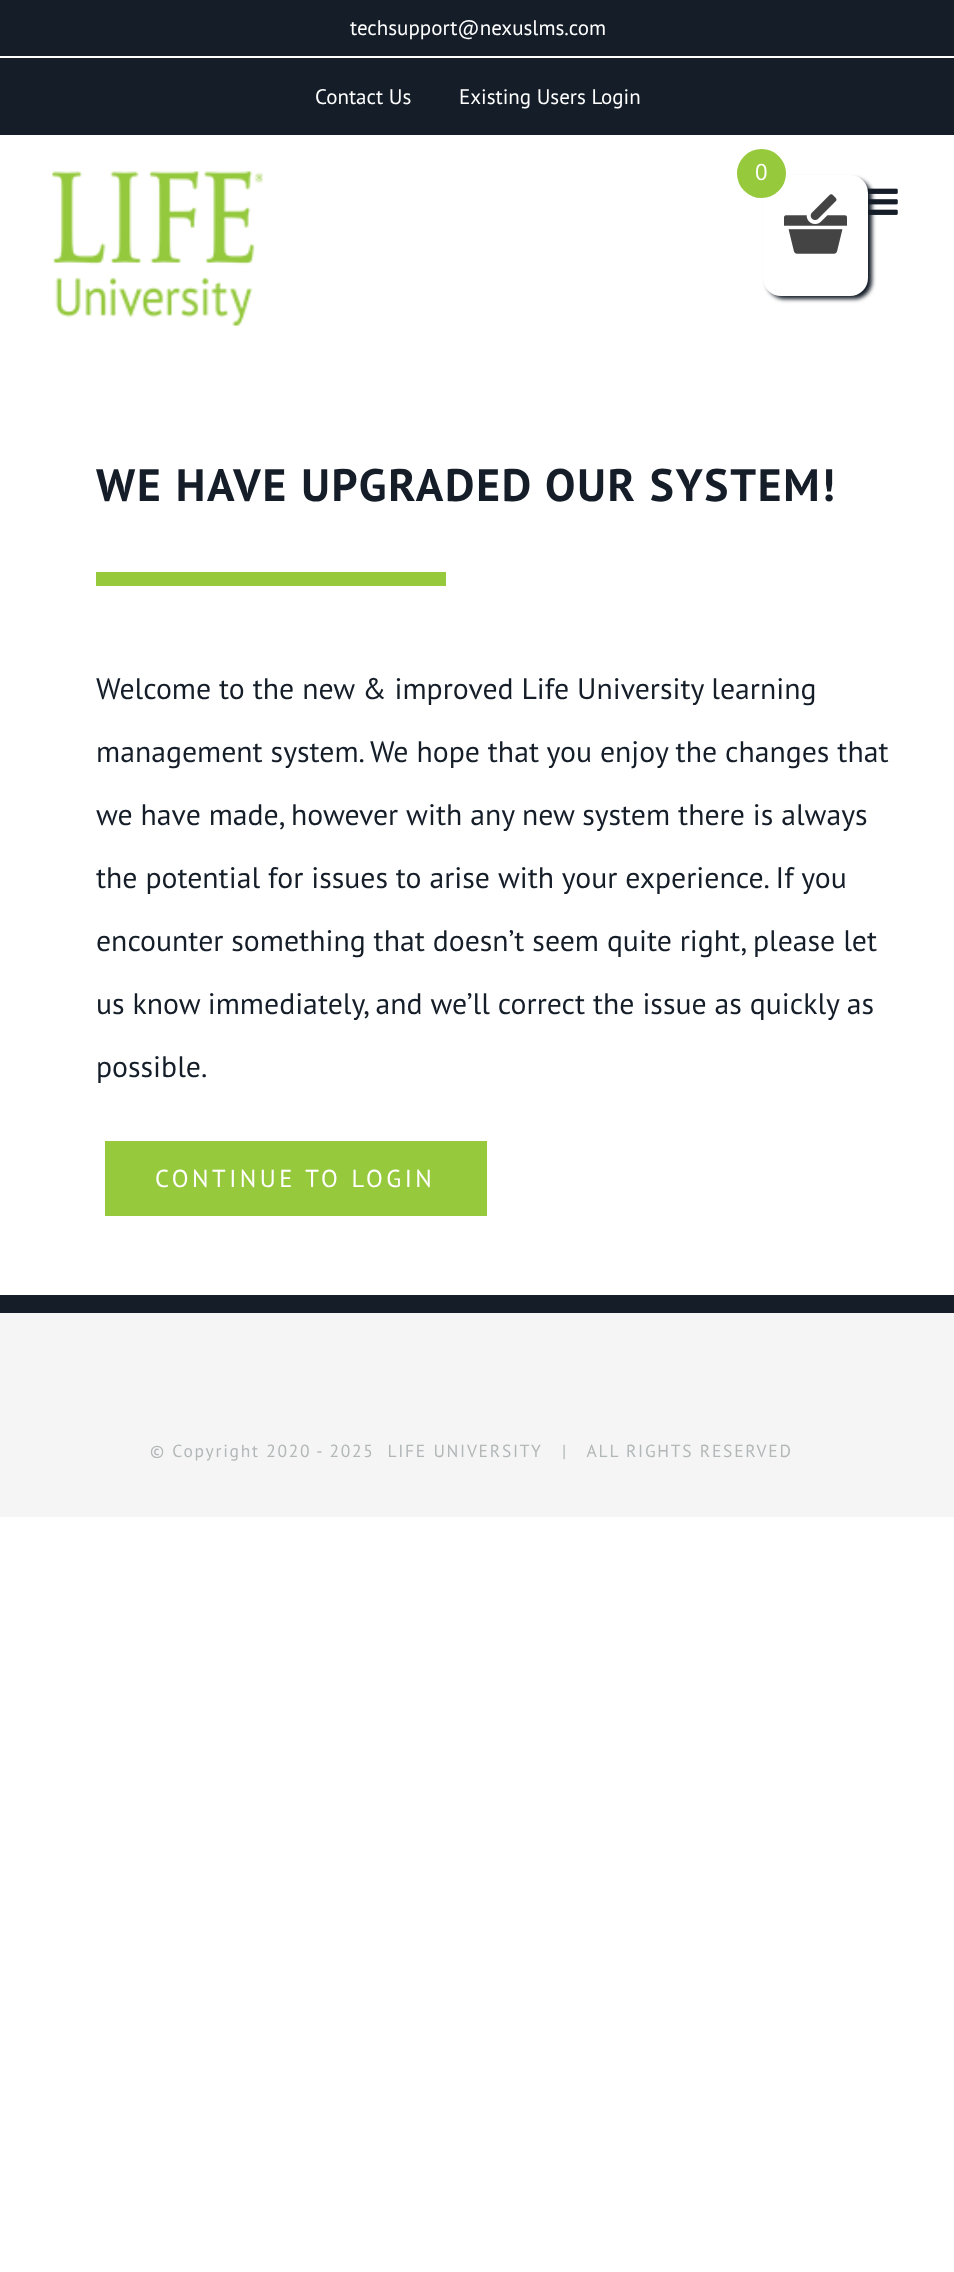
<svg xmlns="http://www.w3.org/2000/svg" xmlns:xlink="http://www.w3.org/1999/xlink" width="954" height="2272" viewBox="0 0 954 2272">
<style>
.cls-1{font:21px PT Sans;fill:#ffffff}
.cls-2{font:bold 45.5px PT Sans;letter-spacing:1.75px;fill:#141d28}
.cls-3{font:29.75px PT Sans;fill:#141d28}
.cls-4{font:24.5px PT Sans;letter-spacing:3.5px;fill:#ffffff}
.cls-5{font:17.5px PT Sans;letter-spacing:1.75px;fill:#b2b7b8}
.cls-6{font:23px PT Sans;fill:#ffffff}
</style>
<rect width="100%" height="100%" fill="#ffffff"/>
<rect fill="#141d28" x="0" y="0" width="954" height="135"/>
<rect fill="#ffffff" x="0" y="56" width="954" height="2"/>
<image xlink:href="image0.png" x="52" y="171" width="211" height="155"/>
<image xlink:href="image1.png" x="867" y="188" width="31" height="27"/>
<rect fill="#97c93c" x="96" y="572" width="350" height="14"/>
<rect fill="#97c93c" x="105" y="1141" width="382" height="75"/>
<rect fill="#141d28" x="0" y="1295" width="954" height="18"/>
<rect fill="#f5f5f5" x="0" y="1313" width="954" height="204"/>
<rect fill="#141d28" filter="blur(2px)" x="767" y="179" width="105" height="120" rx="18"/>
<rect fill="#ffffff" x="763" y="175" width="105" height="121" rx="18"/>
<image xlink:href="image2.png" x="784" y="194" width="63" height="60"/>
<circle fill="#97c93c" cx="761.5" cy="173.5" r="24.5"/>
<text class="cls-1" x="350" y="35">techsupport@nexuslms.com</text>
<text class="cls-1" x="315" y="104">Contact Us</text>
<text class="cls-1" x="459" y="104">Existing Users Login</text>
<text class="cls-2" x="96" y="501">WE HAVE UPGRADED OUR SYSTEM!</text>
<text class="cls-3" x="96" y="699">Welcome to the new &amp; improved Life University learning</text>
<text class="cls-3" x="96" y="762">management system. We hope that you enjoy the changes that</text>
<text class="cls-3" x="96" y="825">we have made, however with any new system there is always</text>
<text class="cls-3" x="96" y="888">the potential for issues to arise with your experience. If you</text>
<text class="cls-3" x="96" y="951">encounter something that doesn’t seem quite right, please let</text>
<text class="cls-3" x="96" y="1014">us know immediately, and we’ll correct the issue as quickly as</text>
<text class="cls-3" x="96" y="1077">possible.</text>
<text class="cls-4" x="155" y="1187">CONTINUE TO LOGIN</text>
<text class="cls-5" xml:space="preserve" x="150" y="1457">© Copyright 2020 - 2025  LIFE UNIVERSITY</text>
<text class="cls-5" xml:space="preserve" x="562" y="1457">|   ALL RIGHTS RESERVED</text>
<text class="cls-6" x="755" y="180">0</text>
</svg>
